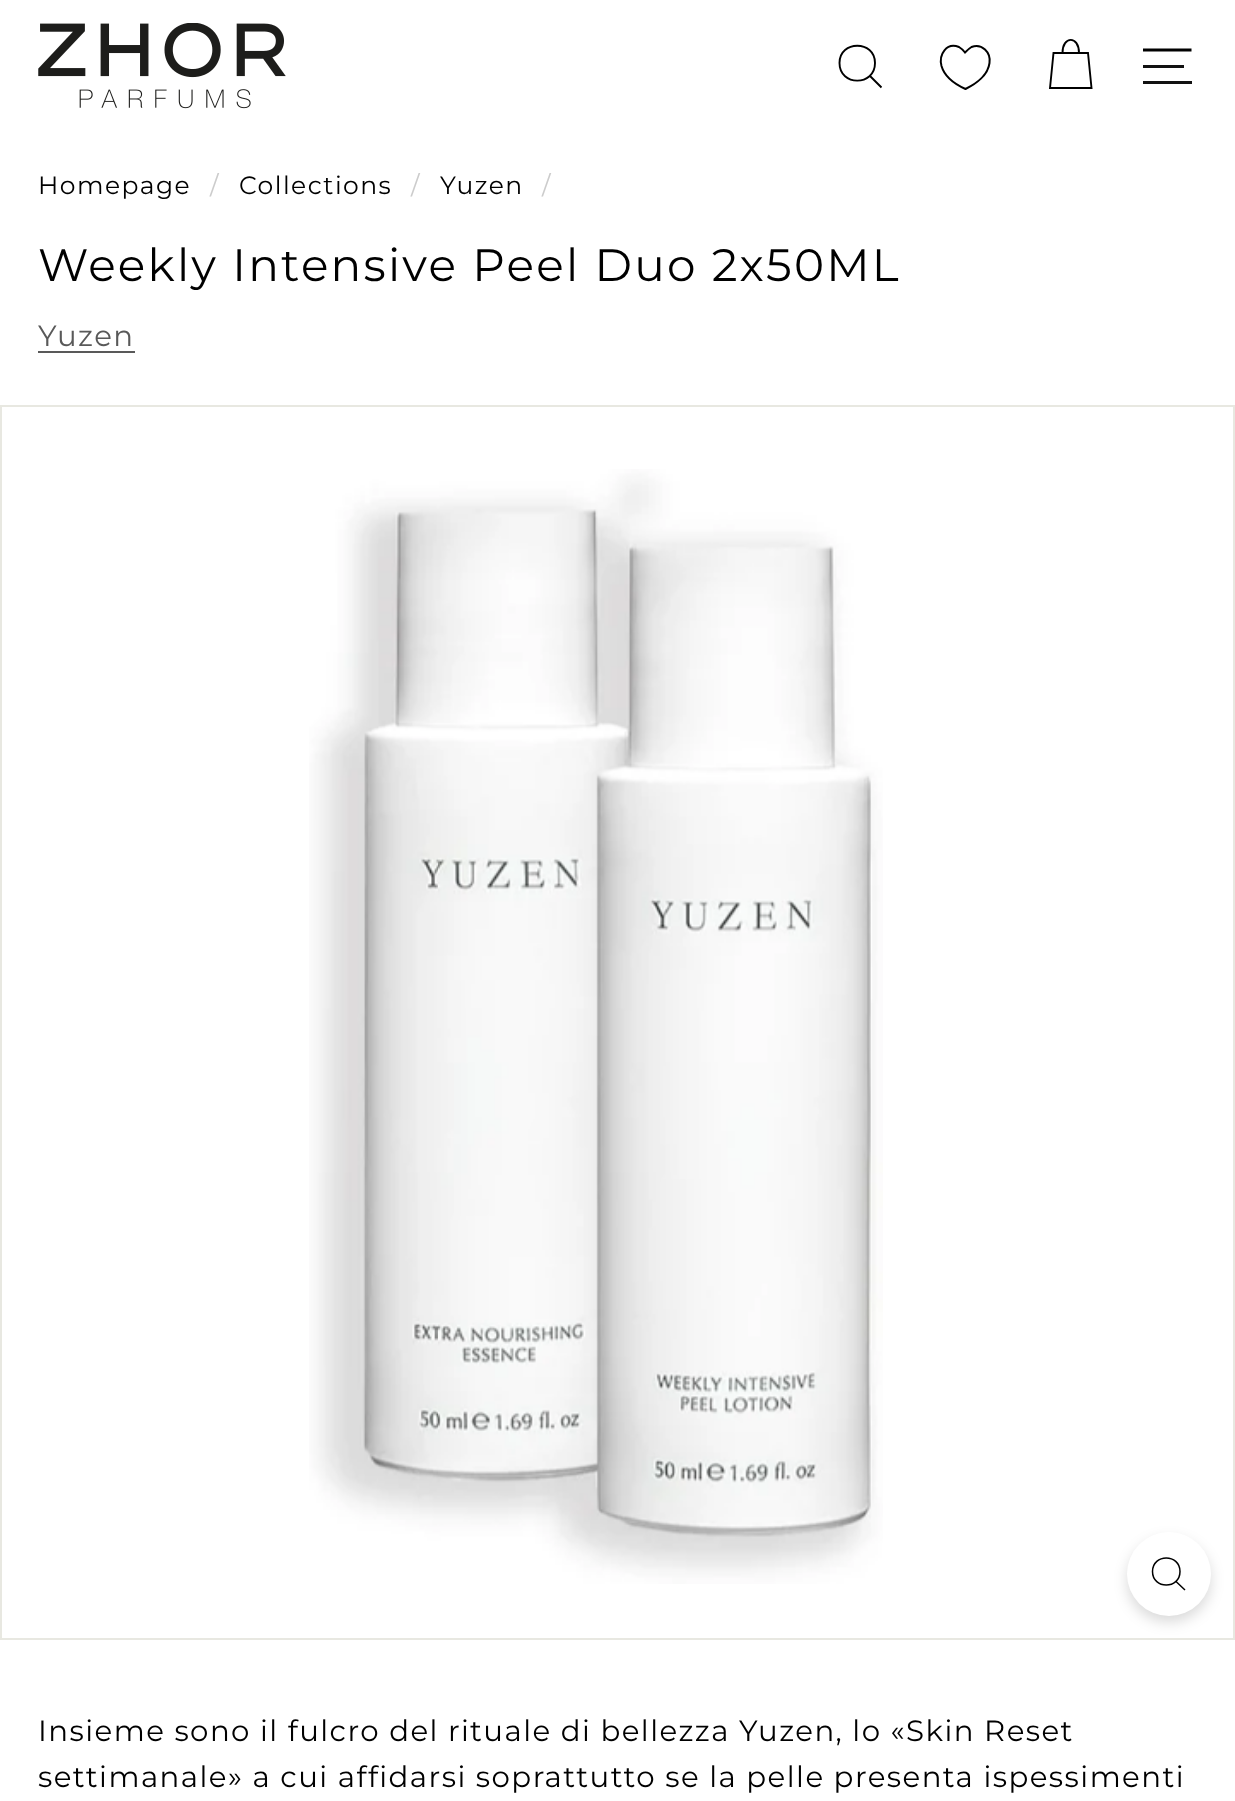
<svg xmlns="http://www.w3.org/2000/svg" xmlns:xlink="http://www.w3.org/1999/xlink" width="1235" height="1801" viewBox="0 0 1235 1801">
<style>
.cls-1{font:25px Montserrat;letter-spacing:1.45px;fill:#000000}
.cls-2{font:25px Montserrat;letter-spacing:1.45px;fill:#cccccc}
.cls-3{font:45.4px Montserrat;letter-spacing:2.25px;fill:#000000}
.cls-4{font:29.25px Montserrat;letter-spacing:1.45px;fill:#595959}
.cls-5{font:29.25px Montserrat;letter-spacing:1.45px;fill:#000000}
</style>
<rect width="100%" height="100%" fill="#ffffff"/>
<image xlink:href="image0.png" x="38" y="23" width="248" height="86"/>
<path fill="none" stroke="#000000" stroke-width="1.9" d="M875 63C875 86.5 839.5 86.5 839.5 63C839.5 40 875 40 875 63ZM881.5 87.5L870 76"/>
<path fill="none" stroke="#000000" stroke-width="2" d="M965.5 89C955.5 84.5 944.5 76.5 941.5 66C938.5 54.5 946.5 42 959 47C961.5 48.5 963.5 50.5 965 52.5C967 50.5 969 48.5 971.5 47C982 43 991 52.5 989.5 63C988 75 976 84 965.5 89Z"/>
<path fill="none" stroke="#000000" stroke-width="1.9" d="M1062.5 53C1062.5 35.5 1079 35.5 1079 53M1053.5 53H1088L1091.5 88H1050Z"/>
<path fill="none" stroke="#000000" stroke-width="2.8" d="M1143 50H1191.5"/>
<rect fill="#111111" x="1143" y="65" width="41" height="3"/>
<rect fill="#111111" x="1143" y="81" width="49" height="3"/>
<rect fill="#595959" x="38" y="351" width="97" height="2"/>
<rect fill="none" stroke="#e8e8e1" stroke-width="2" x="1" y="406" width="1233" height="1233"/>
<image xlink:href="image1.png" x="309" y="469" width="574" height="1115"/>
<rect fill="#000000" fill-opacity="0.15" filter="blur(7px)" x="1127" y="1539" width="84" height="83" rx="41.5"/>
<circle fill="#ffffff" cx="1169" cy="1574" r="42"/>
<path fill="none" stroke="#000000" stroke-width="1.5" d="M1180 1571.5C1180 1589.5 1152.5 1589.5 1152.5 1571.5C1152.5 1553.5 1180 1553.5 1180 1571.5ZM1185 1590L1176 1581.5"/>
<text class="cls-1" x="38" y="194">Homepage</text>
<text class="cls-2" x="210" y="194">/</text>
<text class="cls-1" x="239" y="194">Collections</text>
<text class="cls-2" x="411" y="194">/</text>
<text class="cls-1" x="440" y="194">Yuzen</text>
<text class="cls-2" x="542" y="194">/</text>
<text class="cls-3" x="38" y="281">Weekly Intensive Peel Duo 2x50ML</text>
<text class="cls-4" x="38" y="346">Yuzen</text>
<text class="cls-5"><tspan x="38" y="1741">Insieme sono il fulcro del rituale di bellezza Yuzen, lo «Skin Reset</tspan><tspan x="38" y="1787">settimanale» a cui affidarsi soprattutto se la pelle presenta ispessimenti</tspan></text>
</svg>
